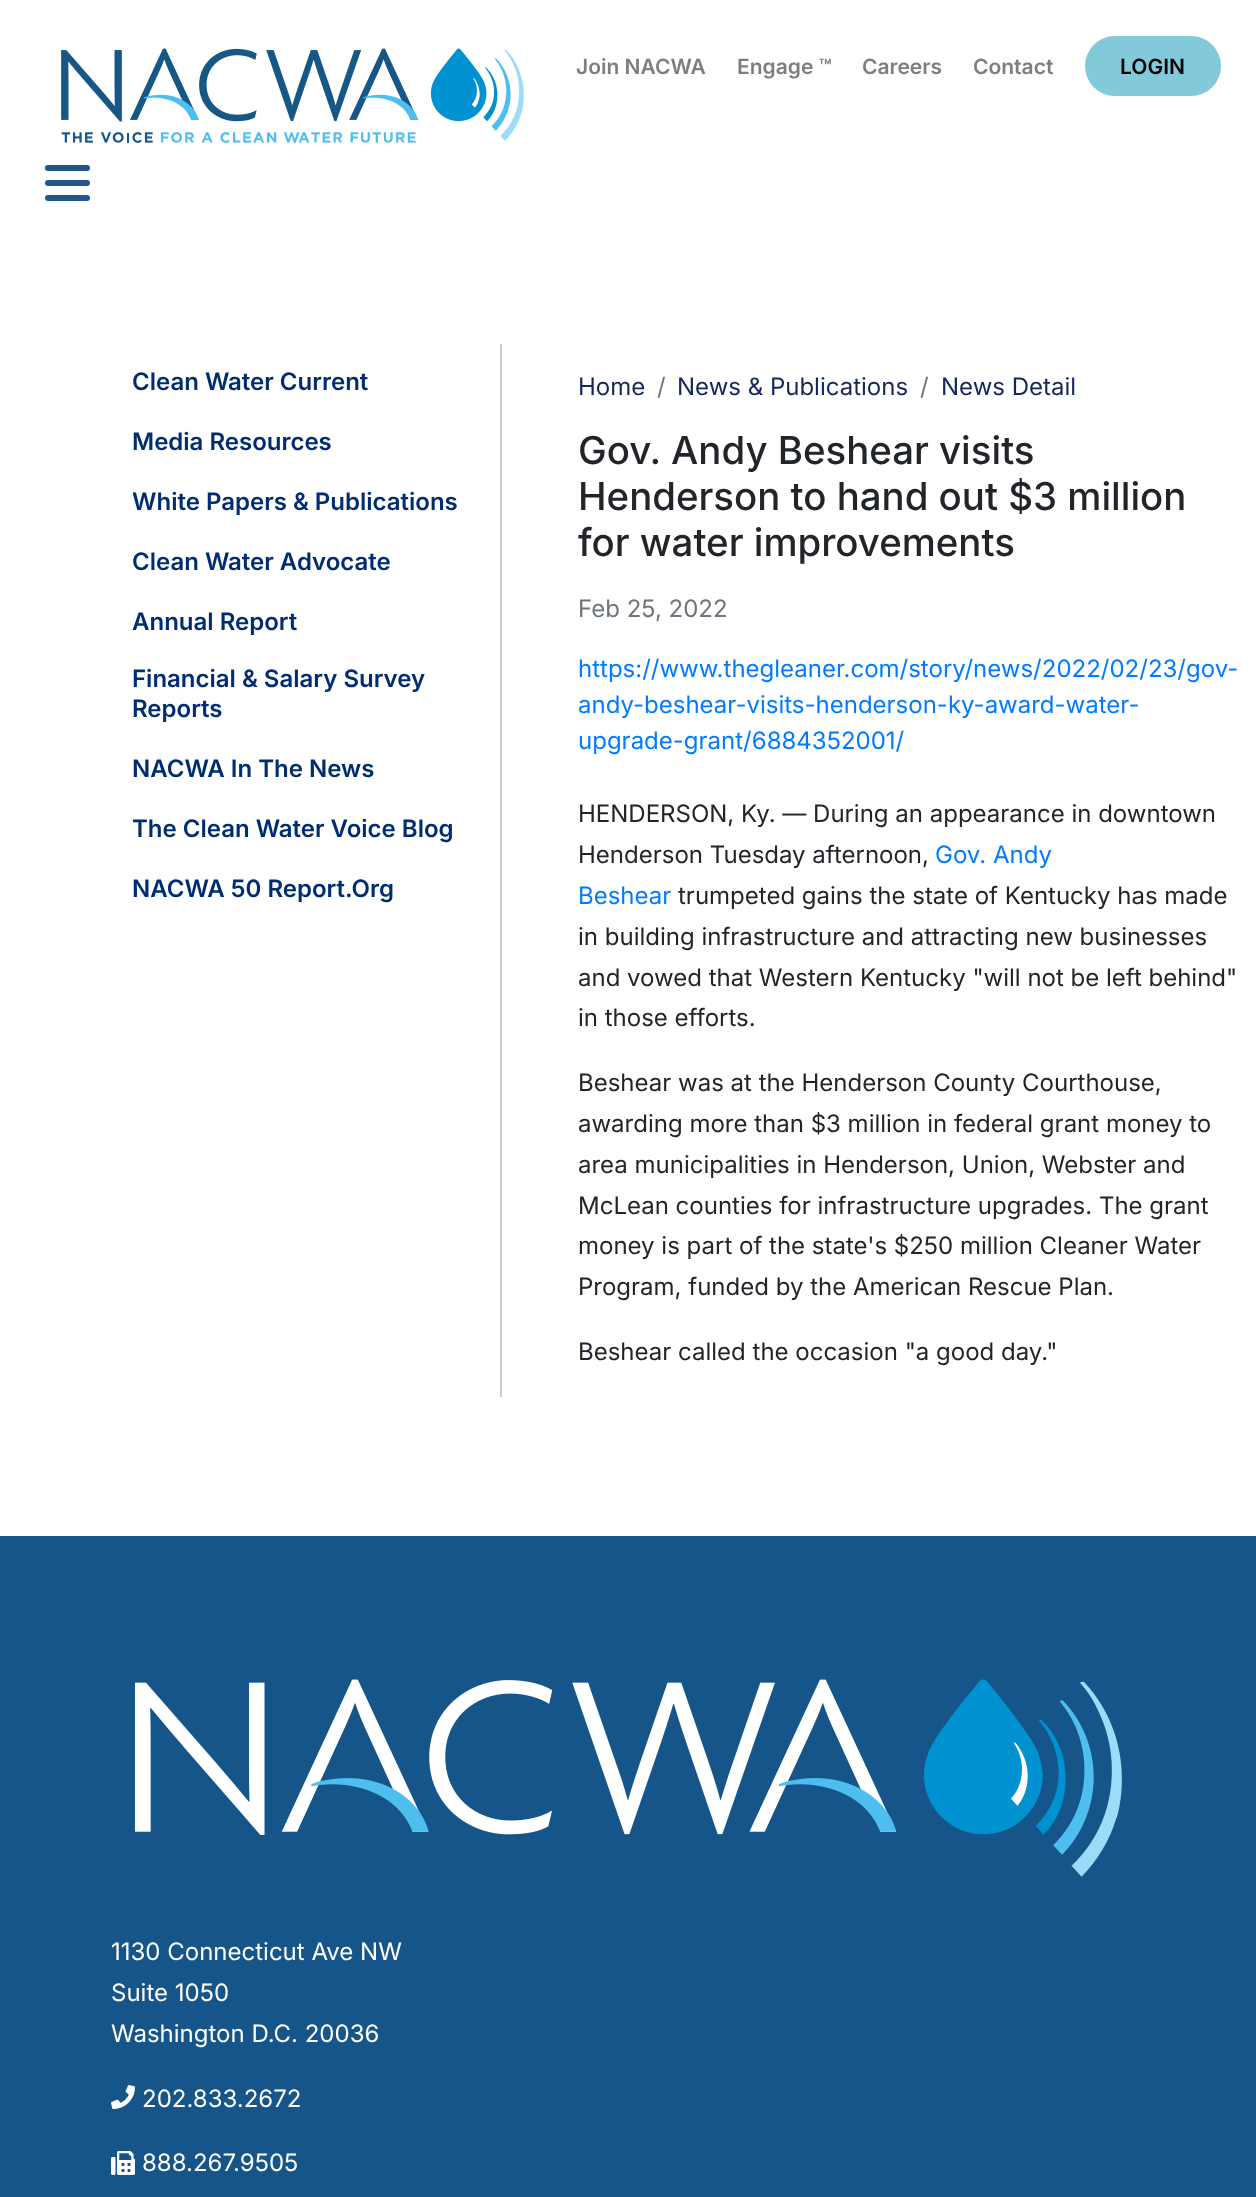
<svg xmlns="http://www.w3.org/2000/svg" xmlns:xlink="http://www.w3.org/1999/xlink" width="1256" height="2197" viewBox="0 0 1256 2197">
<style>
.cls-1{font:600 21px Inter;fill:#7e7e7e}
.cls-2{font:600 21px Inter;fill:#000000}
.cls-3{font:600 24px Inter;fill:#002d72}
.cls-4{font:24px Inter;fill:#16265a}
.cls-5{font:24px Inter;fill:#6c757d}
.cls-6{font:500 38.4px Inter;fill:#212529}
.cls-7{font:24px Inter;fill:#007bff}
.cls-8{font:24px Inter;fill:#212529}
.cls-9{font:24px Inter;fill:#ffffff}
</style>
<rect width="100%" height="100%" fill="#ffffff"/>
<image xlink:href="image0.png" x="61" y="48" width="463" height="95"/>
<rect fill="#82c9d9" x="1085" y="36" width="136" height="60" rx="30"/>
<rect fill="#24568c" x="45" y="165" width="45" height="6" rx="3"/>
<rect fill="#24568c" x="45" y="180" width="45" height="6" rx="3"/>
<rect fill="#24568c" x="45" y="195" width="45" height="6" rx="3"/>
<rect fill="#cccccc" x="500" y="344" width="2" height="1053"/>
<rect fill="#16558a" x="0" y="1536" width="1256" height="661"/>
<image xlink:href="image1.png" x="134" y="1679" width="988" height="198"/>
<image xlink:href="image2.png" x="111" y="2085" width="24" height="24"/>
<image xlink:href="image3.png" x="111" y="2151" width="24" height="24"/>
<text class="cls-1" x="576" y="74">Join NACWA</text>
<text class="cls-1" x="737" y="74">Engage ™</text>
<text class="cls-1" x="862" y="74">Careers</text>
<text class="cls-1" x="973" y="74">Contact</text>
<text class="cls-2" x="1120" y="74">LOGIN</text>
<text class="cls-3" x="132" y="390">Clean Water Current</text>
<text class="cls-3" x="132" y="450">Media Resources</text>
<text class="cls-3" x="132" y="510">White Papers &amp; Publications</text>
<text class="cls-3" x="132" y="570">Clean Water Advocate</text>
<text class="cls-3" x="132" y="630">Annual Report</text>
<text class="cls-3"><tspan x="132" y="687">Financial &amp; Salary Survey</tspan><tspan x="132" y="717">Reports</tspan></text>
<text class="cls-3" x="132" y="777">NACWA In The News</text>
<text class="cls-3" x="132" y="837">The Clean Water Voice Blog</text>
<text class="cls-3" x="132" y="897">NACWA 50 Report.Org</text>
<text class="cls-4" x="578" y="395">Home</text>
<text class="cls-5" x="657" y="395">/</text>
<text class="cls-4" x="677" y="395">News &amp; Publications</text>
<text class="cls-5" x="920" y="395">/</text>
<text class="cls-4" x="941" y="395">News Detail</text>
<text class="cls-6"><tspan x="578" y="464">Gov. Andy Beshear visits</tspan><tspan x="578" y="510">Henderson to hand out $3 million</tspan><tspan x="578" y="556">for water improvements</tspan></text>
<text class="cls-5" x="578" y="617">Feb 25, 2022</text>
<text class="cls-7"><tspan x="578" y="677">https://www.thegleaner.com/story/news/2022/02/23/gov-</tspan><tspan x="578" y="713">andy-beshear-visits-henderson-ky-award-water-</tspan><tspan x="578" y="749">upgrade-grant/6884352001/</tspan></text>
<text class="cls-8"><tspan x="578" y="822">HENDERSON, Ky. — During an appearance in downtown</tspan><tspan x="578" y="863">Henderson Tuesday afternoon,</tspan></text>
<text class="cls-7" x="935" y="863">Gov. Andy</text>
<text class="cls-7" x="578" y="904">Beshear</text>
<text class="cls-8" x="678" y="904">trumpeted gains the state of Kentucky has made</text>
<text class="cls-8"><tspan x="578" y="945">in building infrastructure and attracting new businesses</tspan><tspan x="578" y="986">and vowed that Western Kentucky "will not be left behind"</tspan><tspan x="578" y="1026">in those efforts.</tspan></text>
<text class="cls-8"><tspan x="578" y="1091">Beshear was at the Henderson County Courthouse,</tspan><tspan x="578" y="1132">awarding more than $3 million in federal grant money to</tspan><tspan x="578" y="1173">area municipalities in Henderson, Union, Webster and</tspan><tspan x="578" y="1214">McLean counties for infrastructure upgrades. The grant</tspan><tspan x="578" y="1254">money is part of the state's $250 million Cleaner Water</tspan><tspan x="578" y="1295">Program, funded by the American Rescue Plan.</tspan></text>
<text class="cls-8" x="578" y="1360">Beshear called the occasion "a good day."</text>
<text class="cls-9"><tspan x="111" y="1960">1130 Connecticut Ave NW</tspan><tspan x="111" y="2001">Suite 1050</tspan><tspan x="111" y="2042">Washington D.C. 20036</tspan></text>
<text class="cls-9" x="142" y="2107">202.833.2672</text>
<text class="cls-9" x="142" y="2171">888.267.9505</text>
</svg>
